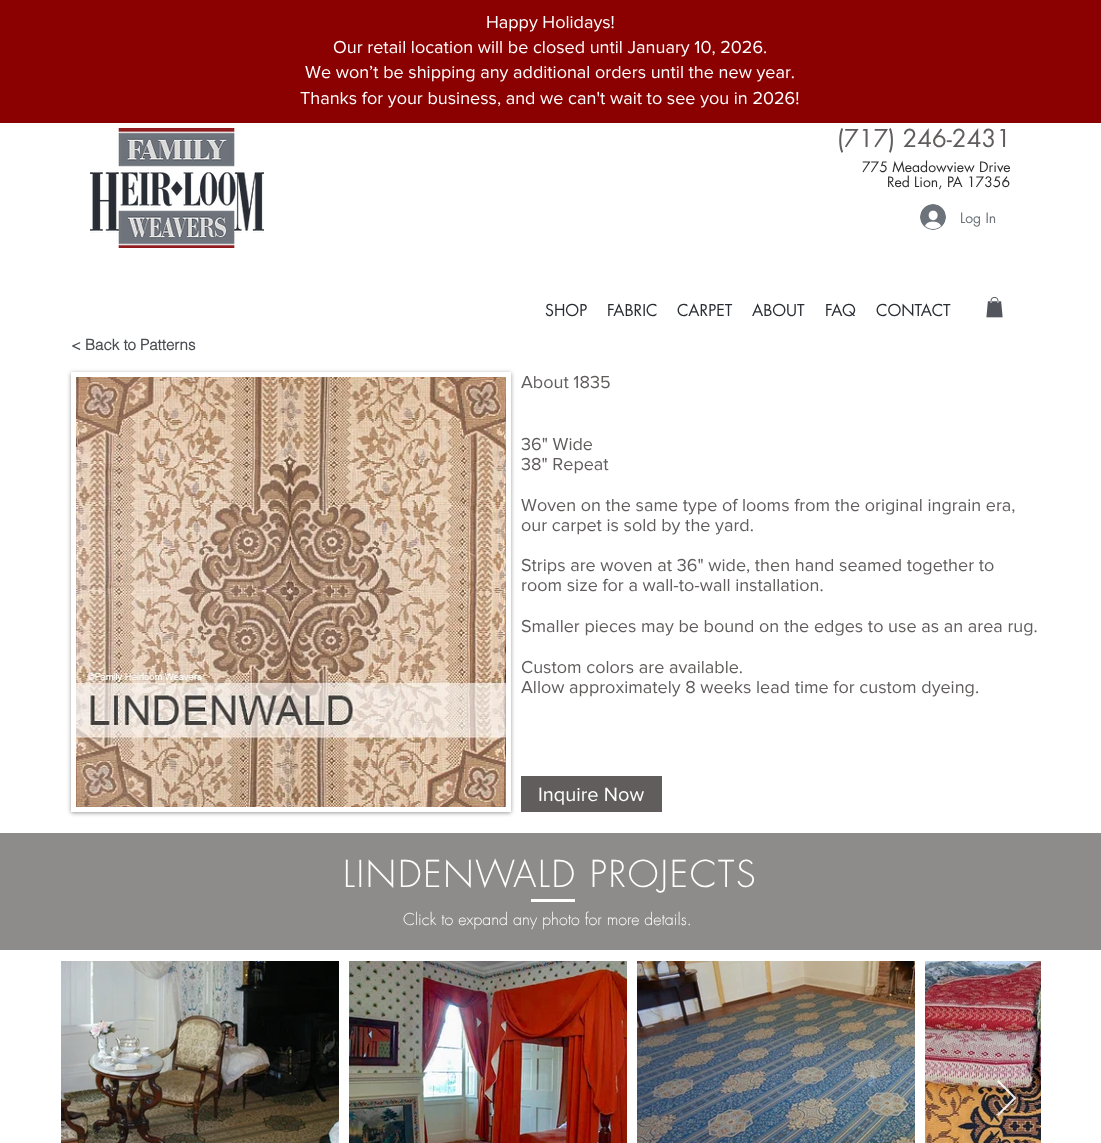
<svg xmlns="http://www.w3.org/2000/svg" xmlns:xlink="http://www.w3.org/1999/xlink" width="1101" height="1143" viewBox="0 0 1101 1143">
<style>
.cls-1{font:18px 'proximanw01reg';fill:#ffffff}
.cls-2{font:24px futura;fill:#615d5d}
.cls-3{font:14px futura;fill:#2f2e2e}
.cls-4{font:14px futura;fill:#6d737a}
.cls-5{font:16px futura;fill:#282d33}
.cls-6{font:bold 15px helvetica;fill:#494d51}
.cls-7{font:18px 'proximanw01reg';fill:#615d5d}
.cls-8{font:20px 'proximanw01reg';fill:#ffffff}
.cls-9{font:300 36px futura;letter-spacing:1.75px;fill:#ffffff}
.cls-10{font:300 16px futura;fill:#ffffff}
</style>
<defs>
<clipPath id="clip1"><path d="M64 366H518V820H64ZM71 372H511V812H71Z" clip-rule="evenodd"/></clipPath>
</defs>
<rect width="100%" height="100%" fill="#ffffff"/>
<rect fill="#8b0000" x="0" y="0" width="1101" height="123"/>
<image xlink:href="image0.png" x="90" y="128" width="174" height="120"/>
<image xlink:href="image1.png" x="920" y="204" width="26" height="26"/>
<image xlink:href="image2.png" x="986" y="297" width="17" height="21"/>
<g clip-path="url(#clip1)">
<rect fill="#000000" fill-opacity="0.4" filter="blur(2px)" x="71" y="373" width="440" height="440"/>
</g>
<image xlink:href="image3.png" x="76" y="377" width="430" height="430"/>
<rect fill="#615d5d" x="521" y="776" width="141" height="36"/>
<rect fill="#8e8c8b" x="0" y="833" width="1101" height="117"/>
<rect fill="#ffffff" x="531" y="899" width="44" height="3"/>
<image xlink:href="image4.png" x="61" y="961" width="278" height="182"/>
<image xlink:href="image5.png" x="349" y="961" width="278" height="182"/>
<image xlink:href="image6.png" x="637" y="961" width="278" height="182"/>
<image xlink:href="image7.png" x="925" y="961" width="116" height="182"/>
<path fill="#ffffff" fill-opacity="0.9" d="M997 1081.5L998.5 1080L1016.5 1098L998.5 1116L997 1114.5L1013.5 1098Z"/>
<text class="cls-1" x="486" y="28">Happy Holidays!</text>
<text class="cls-1" x="333" y="53">Our retail location will be closed until January 10, 2026.</text>
<text class="cls-1" x="305" y="78">We won’t be shipping any additional orders until the new year.</text>
<text class="cls-1" x="300" y="104">Thanks for your business, and we can't wait to see you in 2026!</text>
<text class="cls-2" x="837" y="147">(717) 246-2431</text>
<text class="cls-3" x="862" y="172">775 Meadowview Drive</text>
<text class="cls-3" x="887" y="187">Red Lion, PA 17356</text>
<text class="cls-4" x="960" y="223">Log In</text>
<text class="cls-5" x="545" y="316">SHOP</text>
<text class="cls-5" x="607" y="316">FABRIC</text>
<text class="cls-5" x="677" y="316">CARPET</text>
<text class="cls-5" x="752" y="316">ABOUT</text>
<text class="cls-5" x="825" y="316">FAQ</text>
<text class="cls-5" x="876" y="316">CONTACT</text>
<text class="cls-6" x="71" y="350">&lt; Back to Patterns</text>
<text class="cls-7" x="521" y="388">About 1835</text>
<text class="cls-7"><tspan x="521" y="450">36" Wide</tspan><tspan x="521" y="470">38" Repeat</tspan></text>
<text class="cls-7"><tspan x="521" y="511">Woven on the same type of looms from the original ingrain era,</tspan><tspan x="521" y="531">our carpet is sold by the yard.</tspan></text>
<text class="cls-7"><tspan x="521" y="571">Strips are woven at 36" wide, then hand seamed together to</tspan><tspan x="521" y="591">room size for a wall-to-wall installation.</tspan></text>
<text class="cls-7" x="521" y="632">Smaller pieces may be bound on the edges to use as an area rug.</text>
<text class="cls-7"><tspan x="521" y="673">Custom colors are available.</tspan><tspan x="521" y="693">Allow approximately 8 weeks lead time for custom dyeing.</tspan></text>
<text class="cls-8" x="538" y="801">Inquire Now</text>
<text class="cls-9" x="343" y="887">LINDENWALD PROJECTS</text>
<text class="cls-10" x="403" y="925">Click to expand any photo for more details.</text>
</svg>
